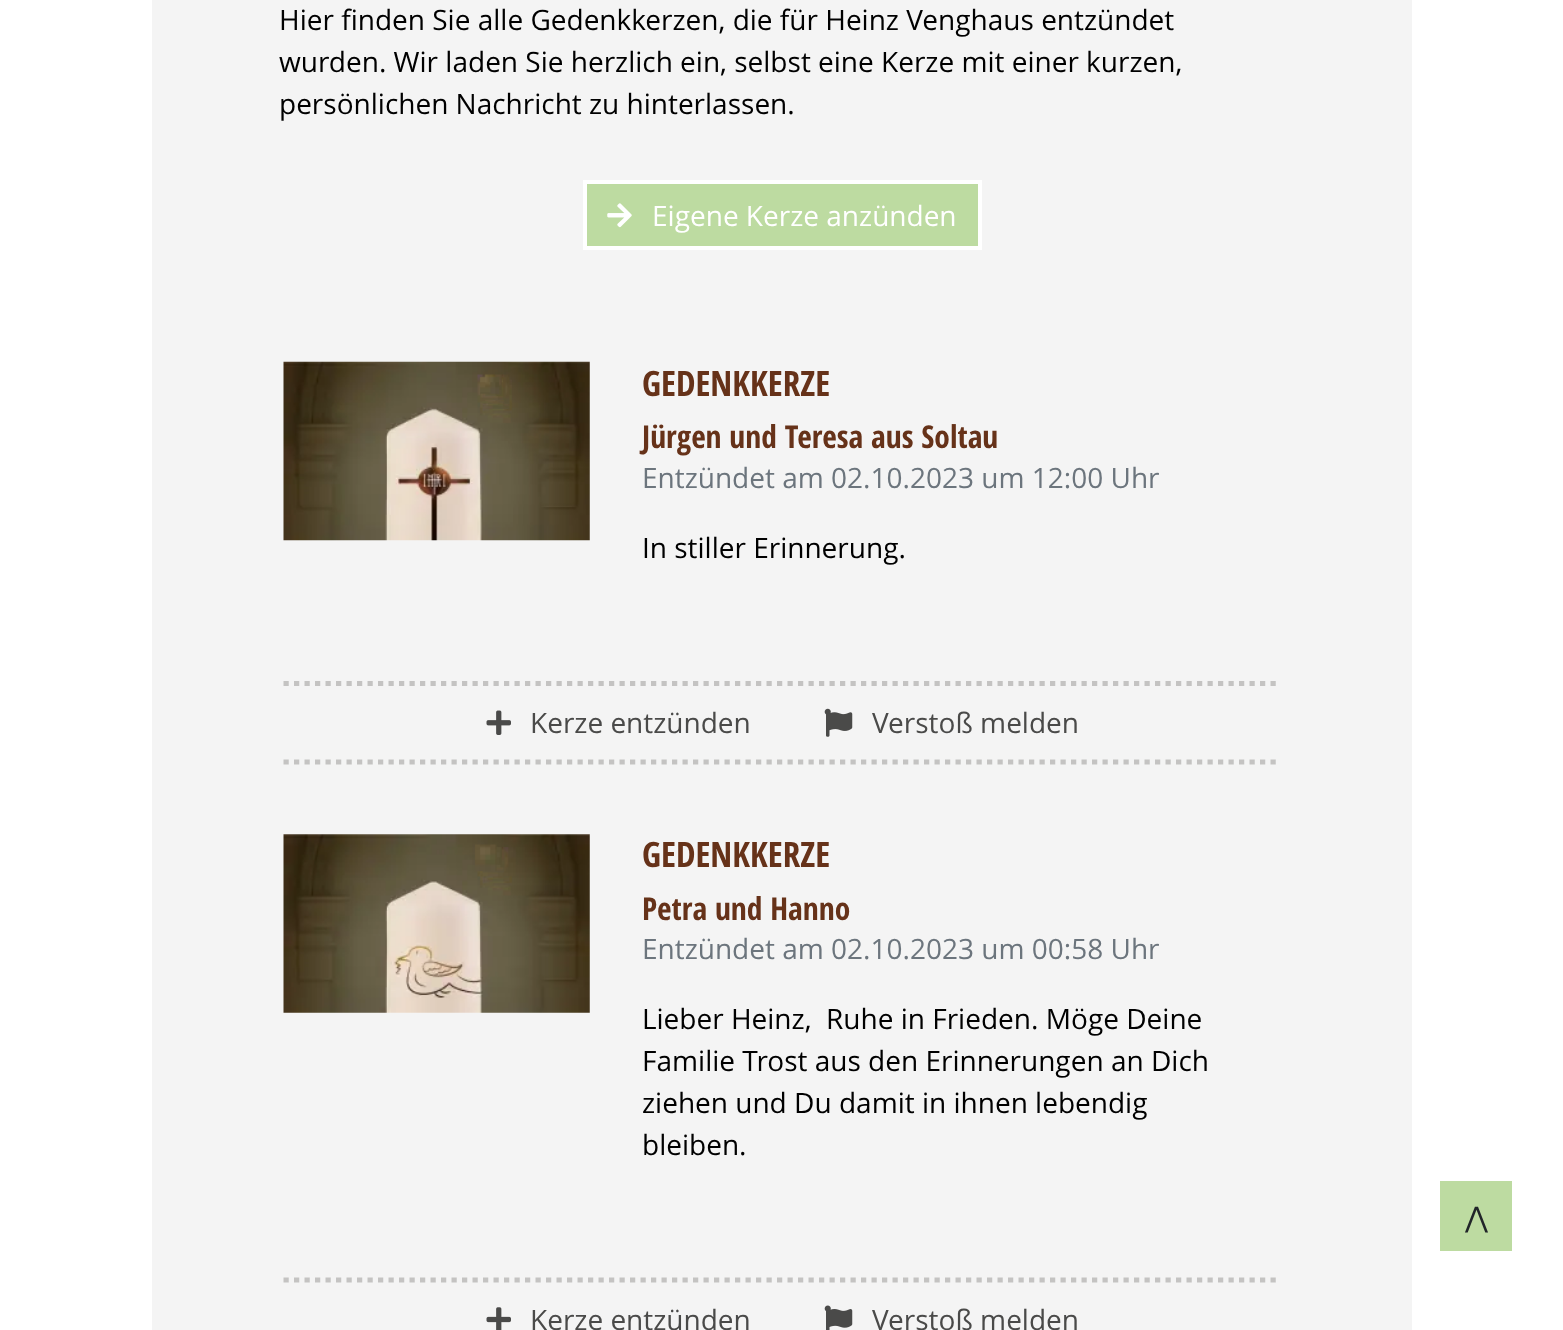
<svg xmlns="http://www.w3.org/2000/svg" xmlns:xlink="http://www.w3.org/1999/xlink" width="1563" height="1330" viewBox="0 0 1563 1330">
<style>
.cls-1{font:28px Open Sans;fill:#000000}
.cls-2{font:28px Open Sans;fill:#ffffff}
.cls-3{font:bold 35px Open Sans Condensed;fill:#663219}
.cls-4{font:bold 31.5px Open Sans Condensed;fill:#663219}
.cls-5{font:28px Open Sans;fill:#6c757d}
.cls-6{font:28px Open Sans;fill:#4a4a49}
.cls-7{font:28px DejaVu Sans;fill:#212529}
</style>
<rect width="100%" height="100%" fill="#ffffff"/>
<rect fill="#f4f4f4" x="152" y="0" width="1260" height="1330"/>
<rect fill="#bddba1" stroke="#ffffff" stroke-width="4" x="585" y="182" width="395" height="66"/>
<image xlink:href="image0.png" x="607" y="203" width="25" height="25"/>
<image xlink:href="image1.png" x="283" y="361" width="307" height="180"/>
<path fill="none" stroke="#c4c3c2" stroke-width="5.2" stroke-dasharray="5.25 5.25" d="M283.5 683.5H1281"/>
<path fill="none" stroke="#c4c3c2" stroke-width="5.2" stroke-dasharray="5.25 5.25" d="M283.5 762H1281"/>
<image xlink:href="image2.png" x="486" y="710" width="25" height="25"/>
<image xlink:href="image3.png" x="824" y="708" width="29" height="29"/>
<image xlink:href="image4.png" x="283" y="834" width="307" height="179"/>
<path fill="none" stroke="#c4c3c2" stroke-width="5.2" stroke-dasharray="5.25 5.25" d="M283.5 1280H1281"/>
<image xlink:href="image5.png" x="486" y="1307" width="25" height="23"/>
<image xlink:href="image6.png" x="824" y="1305" width="29" height="25"/>
<rect fill="#bddba1" x="1440" y="1181" width="72" height="70"/>
<text class="cls-1"><tspan x="279" y="30">Hier finden Sie alle Gedenkkerzen, die für Heinz Venghaus entzündet</tspan><tspan x="279" y="72">wurden. Wir laden Sie herzlich ein, selbst eine Kerze mit einer kurzen,</tspan><tspan x="279" y="114">persönlichen Nachricht zu hinterlassen.</tspan></text>
<text class="cls-2" x="652" y="226">Eigene Kerze anzünden</text>
<text class="cls-3" x="642" y="396">GEDENKKERZE</text>
<text class="cls-4" x="642" y="448">Jürgen und Teresa aus Soltau</text>
<text class="cls-5" x="642" y="488">Entzündet am 02.10.2023 um 12:00 Uhr</text>
<text class="cls-1" x="642" y="558">In stiller Erinnerung.</text>
<text class="cls-6" x="530" y="733">Kerze entzünden</text>
<text class="cls-6" x="872" y="733">Verstoß melden</text>
<text class="cls-3" x="642" y="867">GEDENKKERZE</text>
<text class="cls-4" x="642" y="920">Petra und Hanno</text>
<text class="cls-5" x="642" y="959">Entzündet am 02.10.2023 um 00:58 Uhr</text>
<text class="cls-1" xml:space="preserve"><tspan x="642" y="1029">Lieber Heinz,  Ruhe in Frieden. Möge Deine</tspan><tspan x="642" y="1071">Familie Trost aus den Erinnerungen an Dich</tspan><tspan x="642" y="1113">ziehen und Du damit in ihnen lebendig</tspan><tspan x="642" y="1155">bleiben.</tspan></text>
<text class="cls-6" x="530" y="1330">Kerze entzünden</text>
<text class="cls-6" x="872" y="1330">Verstoß melden</text>
<text class="cls-7" x="1465" y="1227">⋀</text>
</svg>
